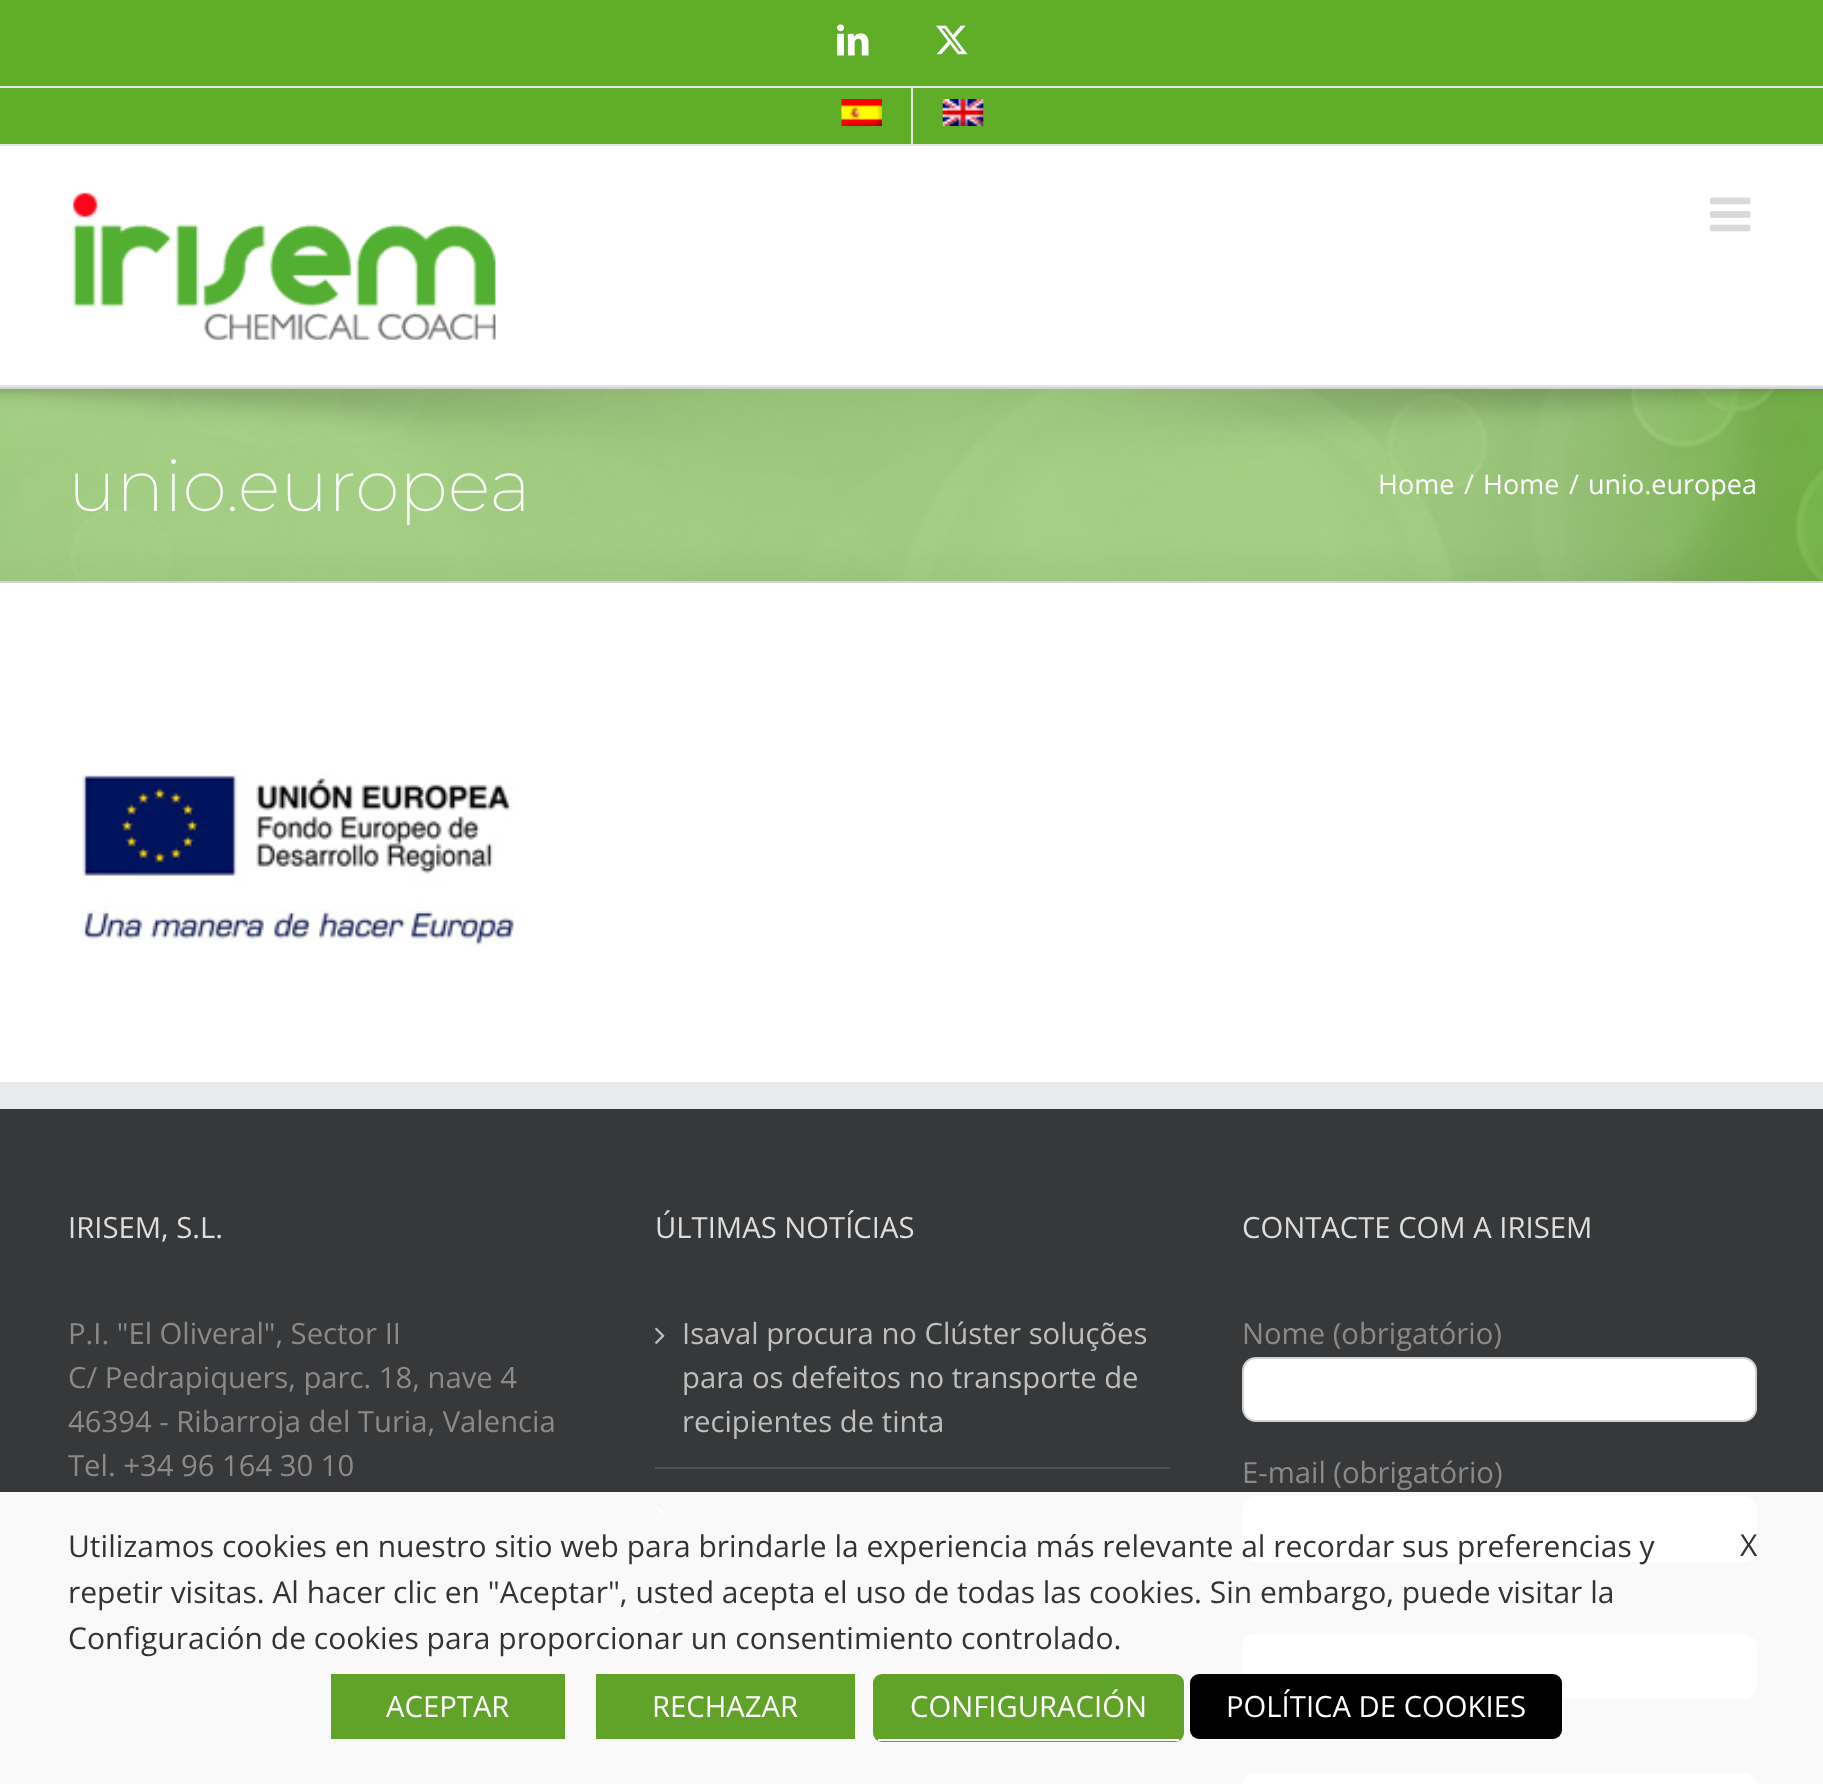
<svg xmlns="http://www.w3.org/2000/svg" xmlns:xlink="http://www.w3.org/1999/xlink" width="1823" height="1784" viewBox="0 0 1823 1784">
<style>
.cls-1{font:200 72px Montserrat;fill:#ffffff}
.cls-2{font:27px Open Sans;fill:#ffffff}
.cls-3{font:29.25px Open Sans;fill:#dddddd}
.cls-4{font:29.25px Open Sans;fill:#8c8989}
.cls-5{font:29.25px Open Sans;fill:#bfbfbf}
.cls-6{font:30px Open Sans;fill:#333333}
.cls-7{font:29.25px Open Sans;fill:#ffffff}
</style>
<rect width="100%" height="100%" fill="#ffffff"/>
<rect fill="#60ae27" x="0" y="0" width="1823" height="144"/>
<rect fill="#e5e5e5" x="0" y="144" width="1823" height="2"/>
<rect fill="#e5e5e5" x="0" y="86" width="1823" height="2"/>
<image xlink:href="image0.png" x="837" y="24" width="32" height="32"/>
<image xlink:href="image1.png" x="936" y="25" width="32" height="30"/>
<image xlink:href="image2.png" x="841" y="99" width="41" height="27"/>
<rect fill="#e5e5e5" x="911" y="88" width="2" height="56"/>
<image xlink:href="image3.png" x="942" y="99" width="42" height="27"/>
<rect fill="#e5e5e5" x="0" y="385" width="1823" height="2"/>
<image xlink:href="image4.png" x="71" y="192" width="425" height="148"/>
<image xlink:href="image5.png" x="1710" y="197" width="41" height="35"/>
<image xlink:href="image6.png" x="0" y="389" width="1823" height="192"/>
<rect fill="#d2d3d4" x="0" y="387" width="1823" height="2"/>
<rect fill="#d2d3d4" x="0" y="581" width="1823" height="2"/>
<image xlink:href="image7.png" x="79" y="773" width="436" height="173"/>
<rect fill="#363839" x="0" y="1109" width="1823" height="383"/>
<rect fill="#f9f9f9" x="0" y="1492" width="1823" height="292"/>
<rect fill="#e9eaee" x="0" y="1082" width="1823" height="27"/>
<rect fill="#505152" x="655" y="1467" width="515" height="2"/>
<image xlink:href="image8.png" x="655" y="1327" width="10" height="17"/>
<image xlink:href="image9.png" x="655" y="1505" width="10" height="17"/>
<image xlink:href="image10.png" x="655" y="1597" width="10" height="17"/>
<rect fill="#ffffff" stroke="#d2d2d2" stroke-width="2" x="1243" y="1358" width="513" height="63" rx="13"/>
<rect fill="#ffffff" x="1242" y="1496" width="515" height="66" rx="14"/>
<rect fill="#ffffff" x="1242" y="1634" width="515" height="65" rx="14"/>
<rect fill="#ffffff" x="1242" y="1773" width="515" height="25" rx="14"/>
<rect fill="#61a229" x="331" y="1674" width="234" height="65"/>
<rect fill="#61a229" x="596" y="1674" width="259" height="65"/>
<rect fill="#61a229" x="873" y="1674" width="311" height="68" rx="9"/>
<rect fill="#ffffff" x="878" y="1739" width="301" height="2"/>
<rect fill="#000000" x="1190" y="1674" width="372" height="65" rx="9"/>
<text class="cls-1" x="68" y="511">unio.europea</text>
<text class="cls-2" x="1378" y="494">Home</text>
<text class="cls-2" x="1464" y="494">/</text>
<text class="cls-2" x="1483" y="494">Home</text>
<text class="cls-2" x="1569" y="494">/</text>
<text class="cls-2" x="1588" y="494">unio.europea</text>
<text class="cls-3" x="68" y="1238">IRISEM, S.L.</text>
<text class="cls-4"><tspan x="68" y="1344">P.I. "El Oliveral", Sector II</tspan><tspan x="68" y="1388">C/ Pedrapiquers, parc. 18, nave 4</tspan><tspan x="68" y="1432">46394 - Ribarroja del Turia, Valencia</tspan><tspan x="68" y="1476">Tel. +34 96 164 30 10</tspan></text>
<text class="cls-3" x="655" y="1238">ÚLTIMAS NOTÍCIAS</text>
<text class="cls-5"><tspan x="682" y="1344">Isaval procura no Clúster soluções</tspan><tspan x="682" y="1388">para os defeitos no transporte de</tspan><tspan x="682" y="1432">recipientes de tinta</tspan></text>
<text class="cls-3" x="1242" y="1238">CONTACTE COM A IRISEM</text>
<text class="cls-4" x="1242" y="1344">Nome (obrigatório)</text>
<text class="cls-4" x="1242" y="1483">E-mail (obrigatório)</text>
<text class="cls-6"><tspan x="68" y="1557">Utilizamos cookies en nuestro sitio web para brindarle la experiencia más relevante al recordar sus preferencias y</tspan><tspan x="68" y="1603">repetir visitas. Al hacer clic en "Aceptar", usted acepta el uso de todas las cookies. Sin embargo, puede visitar la</tspan><tspan x="68" y="1649">Configuración de cookies para proporcionar un consentimiento controlado.</tspan></text>
<text class="cls-7" x="386" y="1717">ACEPTAR</text>
<text class="cls-7" x="652" y="1717">RECHAZAR</text>
<text class="cls-7" x="910" y="1717">CONFIGURACIÓN</text>
<text class="cls-7" x="1226" y="1717">POLÍTICA DE COOKIES</text>
<text class="cls-6" x="1740" y="1556">X</text>
</svg>
